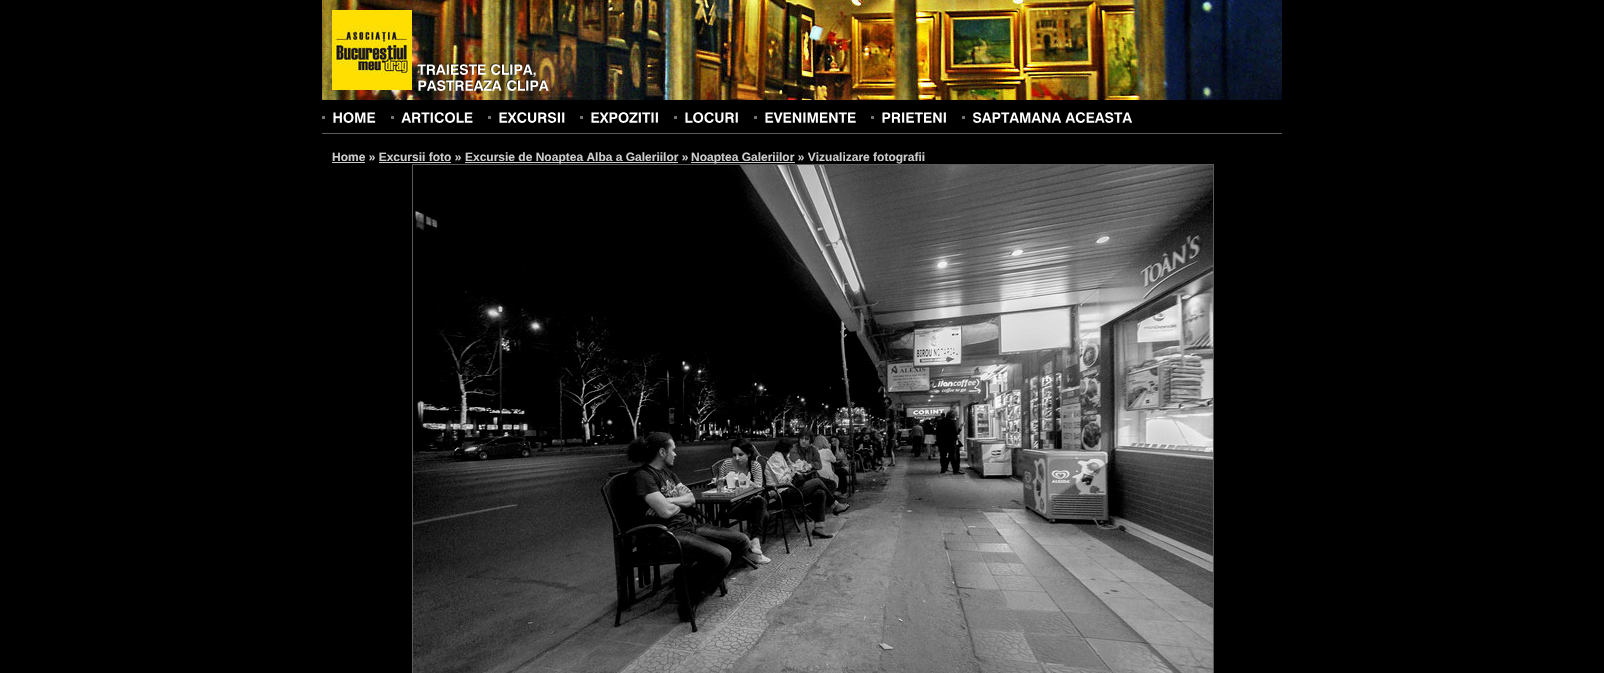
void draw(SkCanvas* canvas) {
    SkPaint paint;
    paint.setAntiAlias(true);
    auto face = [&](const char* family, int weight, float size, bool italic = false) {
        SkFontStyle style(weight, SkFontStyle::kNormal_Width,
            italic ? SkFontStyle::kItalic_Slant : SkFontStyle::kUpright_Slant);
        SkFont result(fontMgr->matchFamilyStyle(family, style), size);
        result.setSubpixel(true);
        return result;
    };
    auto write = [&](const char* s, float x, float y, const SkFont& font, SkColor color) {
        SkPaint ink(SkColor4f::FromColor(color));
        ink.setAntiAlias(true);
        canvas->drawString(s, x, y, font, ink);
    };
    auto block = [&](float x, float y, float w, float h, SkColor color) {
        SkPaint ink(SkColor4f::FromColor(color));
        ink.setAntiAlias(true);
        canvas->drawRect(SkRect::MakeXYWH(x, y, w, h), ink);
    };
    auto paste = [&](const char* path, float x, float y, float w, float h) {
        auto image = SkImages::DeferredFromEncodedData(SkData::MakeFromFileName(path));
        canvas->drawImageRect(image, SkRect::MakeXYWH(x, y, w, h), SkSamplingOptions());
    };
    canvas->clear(SK_ColorBLACK);
    paste("pic1.png", 322, 0, 960, 100);
    paste("pic2.png", 332, 10, 80, 80);
    paste("pic3.png", 416, 63, 70, 12);
    paste("pic4.png", 490, 63, 46, 14);
    paste("pic5.png", 417, 79, 85, 12);
    paste("pic6.png", 506, 79, 43, 12);
    block(322, 133, 960, 1, SkColorSetRGB(90, 90, 90));
    block(322, 116, 3, 3, SkColorSetRGB(115, 115, 115));
    paste("pic7.png", 333, 112, 43, 11);
    block(391, 116, 3, 3, SkColorSetRGB(115, 115, 115));
    paste("pic8.png", 401, 112, 72, 11);
    block(488, 116, 3, 3, SkColorSetRGB(115, 115, 115));
    paste("pic9.png", 499, 112, 66, 11);
    block(580, 116, 3, 3, SkColorSetRGB(115, 115, 115));
    paste("pic10.png", 591, 112, 67, 11);
    block(674, 116, 3, 3, SkColorSetRGB(115, 115, 115));
    paste("pic11.png", 685, 112, 53, 11);
    block(754, 116, 3, 3, SkColorSetRGB(115, 115, 115));
    paste("pic12.png", 765, 112, 91, 11);
    block(871, 116, 3, 3, SkColorSetRGB(115, 115, 115));
    paste("pic13.png", 882, 112, 64, 11);
    block(962, 116, 3, 3, SkColorSetRGB(115, 115, 115));
    paste("pic14.png", 973, 112, 89, 11);
    paste("pic15.png", 1065, 112, 67, 11);
    auto kFont1 = face("Liberation Sans", 700, 12);
    write("Home » Excursii foto »", 332, 161, kFont1, SkColorSetRGB(204, 204, 204));
    block(332, 162, 33, 1, SkColorSetRGB(204, 204, 204));
    block(465, 162, 213, 1, SkColorSetRGB(204, 204, 204));
    write("Excursie de Noaptea Alba a Galeriilor »", 465, 161, kFont1, SkColorSetRGB(204, 204, 204));
    block(691, 162, 104, 1, SkColorSetRGB(204, 204, 204));
    write("Noaptea Galeriilor » Vizualizare fotografii", 691, 161, kFont1, SkColorSetRGB(204, 204, 204));
    block(379, 162, 72, 1, SkColorSetRGB(204, 204, 204));
    paint.setStyle(SkPaint::kStroke_Style);
    paint.setStrokeWidth(1);
    paint.setColor(SkColorSetRGB(90, 90, 90));
    canvas->drawRect(SkRect::MakeXYWH(412.5f, 164.5f, 801, 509), paint);
    paste("pic16.png", 413, 165, 800, 508);
}
